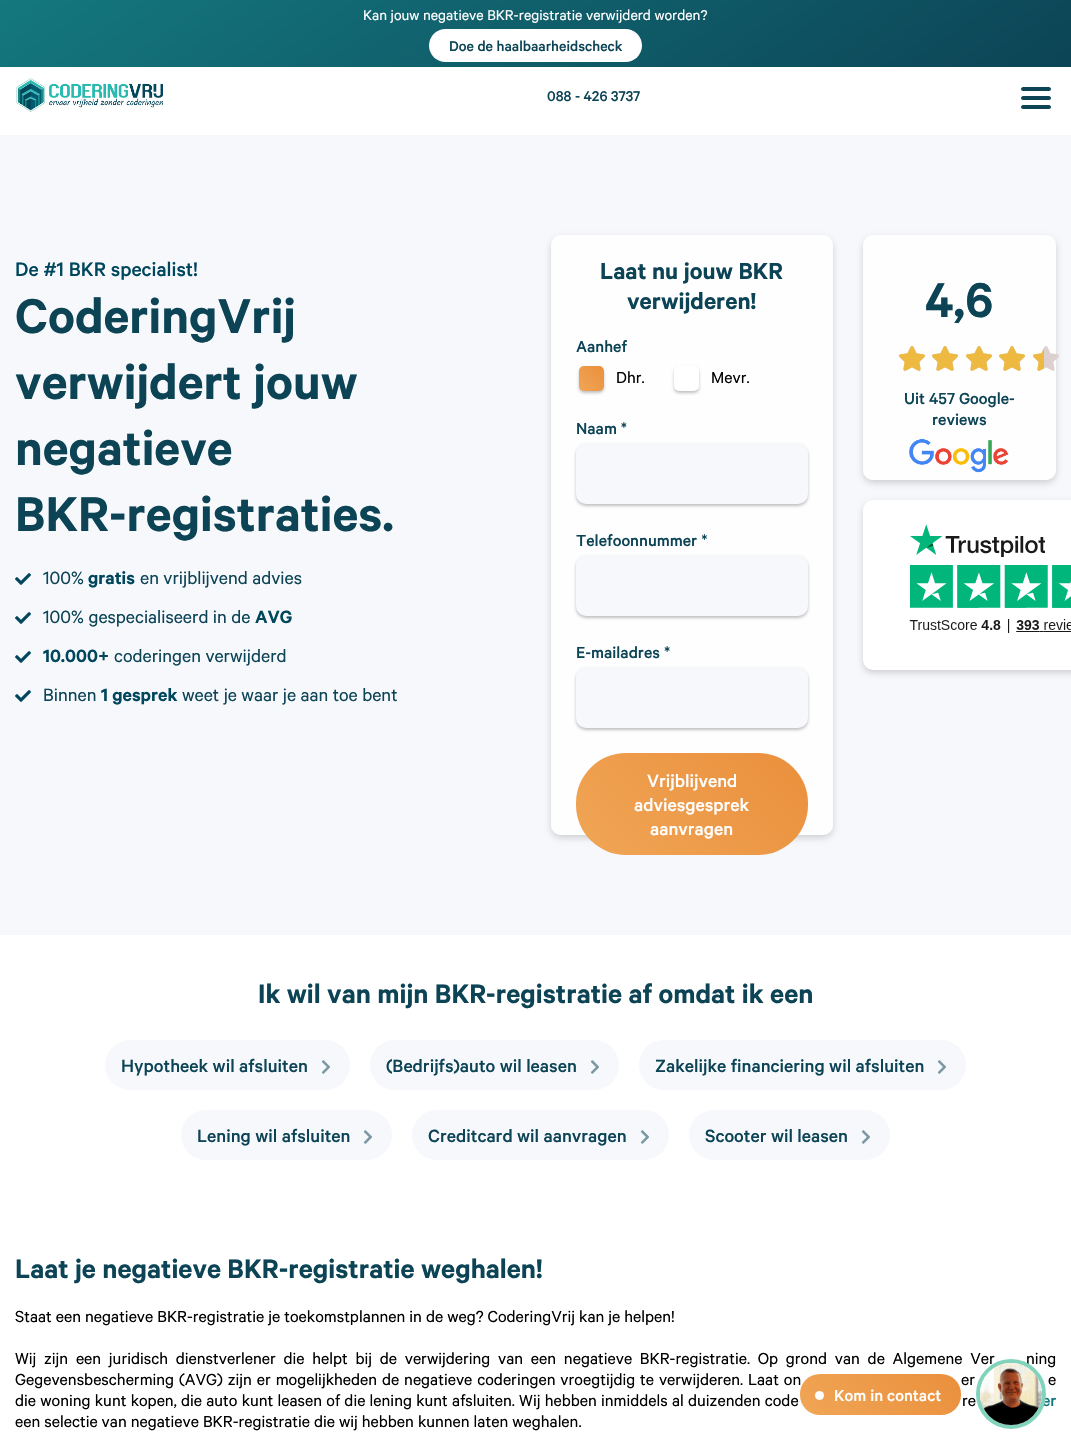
void draw(SkCanvas* canvas) {
    SkPaint paint;
    paint.setAntiAlias(true);
    auto face = [&](const char* family, int weight, float size, bool italic = false) {
        SkFontStyle style(weight, SkFontStyle::kNormal_Width,
            italic ? SkFontStyle::kItalic_Slant : SkFontStyle::kUpright_Slant);
        SkFont result(fontMgr->matchFamilyStyle(family, style), size);
        result.setSubpixel(true);
        return result;
    };
    auto write = [&](const char* s, float x, float y, const SkFont& font, SkColor color) {
        SkPaint ink(SkColor4f::FromColor(color));
        ink.setAntiAlias(true);
        canvas->drawString(s, x, y, font, ink);
    };
    auto writeSpaced = [&](const char* s, float x, float y, const SkFont& font, const SkPaint& ink, float letter, float word) {
        std::vector<SkGlyphID> glyphs(font.countText(s, strlen(s), SkTextEncoding::kUTF8));
        std::vector<float> xs(glyphs.size());
        font.textToGlyphs(s, strlen(s), SkTextEncoding::kUTF8, glyphs);
        font.getXPos(glyphs, xs, x);
        float extra = 0;
        for (size_t i = 0; i < glyphs.size(); i++) {
            xs[i] += extra;
            extra += letter + word * (glyphs[i] == font.unicharToGlyph(' '));
        }
        canvas->drawTextBlob(SkTextBlob::MakeFromPosHGlyphs(glyphs, xs, y, font), 0, 0, ink);
    };
    auto block = [&](float x, float y, float w, float h, SkColor color) {
        SkPaint ink(SkColor4f::FromColor(color));
        ink.setAntiAlias(true);
        canvas->drawRect(SkRect::MakeXYWH(x, y, w, h), ink);
    };
    auto card = [&](float x, float y, float w, float h, float radius, SkColor color) {
        SkPaint ink(SkColor4f::FromColor(color));
        ink.setAntiAlias(true);
        canvas->drawRoundRect(SkRect::MakeXYWH(x, y, w, h), radius, radius, ink);
    };
    auto paste = [&](const char* path, float x, float y, float w, float h) {
        auto image = SkImages::DeferredFromEncodedData(SkData::MakeFromFileName(path));
        canvas->drawImageRect(image, SkRect::MakeXYWH(x, y, w, h), SkSamplingOptions());
    };
    canvas->clear(SK_ColorWHITE);
    {
        const SkColor colors[] = {SkColorSetRGB(20, 120, 127), SkColorSetRGB(12, 68, 86)};
        const float stops[] = {0, 1};
        const SkPoint ends[] = {{344, -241}, {727, 308}};
        paint.setShader(SkGradientShader::MakeLinear(ends, colors, stops, 2, SkTileMode::kClamp));
        paint.setAlpha(255);
    }
    canvas->drawRect(SkRect::MakeXYWH(0, 0, 1071, 67), paint);
    auto kFont1 = face("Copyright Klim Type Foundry", 400, 16);
    write("Kan jouw negatieve BKR-registratie verwijderd worden?", 363, 20, kFont1, SK_ColorWHITE);
    card(429, 29, 213, 33, 16.5f, SK_ColorWHITE);
    auto kFont2 = face("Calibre", 500, 16);
    write("Doe de haalbaarheidscheck", 449, 51, kFont2, SkColorSetRGB(12, 68, 86));
    paste("pic1.png", 16, 78, 147, 34);
    write("088 - 426 3737", 547, 101, kFont2, SkColorSetRGB(12, 68, 86));
    paint.setShader(nullptr);
    paint.setColor(SkColorSetRGB(12, 68, 86));
    canvas->drawPath(SkPathBuilder().moveTo(1023, 87).lineTo(1036, 87).lineTo(1036, 91).lineTo(1023, 91).cubicTo(1022, 91, 1021, 90, 1021, 89).cubicTo(1021, 88, 1022, 87, 1023, 87).close().detach(), paint);
    canvas->drawPath(SkPathBuilder().moveTo(1036, 87).lineTo(1049, 87).cubicTo(1050, 87, 1051, 88, 1051, 89).cubicTo(1051, 90, 1050, 91, 1049, 91).lineTo(1036, 91).close().detach(), paint);
    canvas->drawPath(SkPathBuilder().moveTo(1023, 96).lineTo(1036, 96).lineTo(1036, 100).lineTo(1023, 100).cubicTo(1022, 100, 1021, 99, 1021, 98).cubicTo(1021, 97, 1022, 96, 1023, 96).close().detach(), paint);
    canvas->drawPath(SkPathBuilder().moveTo(1036, 96).lineTo(1049, 96).cubicTo(1050, 96, 1051, 97, 1051, 98).cubicTo(1051, 99, 1050, 100, 1049, 100).lineTo(1036, 100).close().detach(), paint);
    canvas->drawPath(SkPathBuilder().moveTo(1023, 105).lineTo(1036, 105).lineTo(1036, 109).lineTo(1023, 109).cubicTo(1022, 109, 1021, 108, 1021, 107).cubicTo(1021, 106, 1022, 105, 1023, 105).close().detach(), paint);
    canvas->drawPath(SkPathBuilder().moveTo(1036, 105).lineTo(1049, 105).cubicTo(1050, 105, 1051, 106, 1051, 107).cubicTo(1051, 108, 1050, 109, 1049, 109).lineTo(1036, 109).close().detach(), paint);
    block(0, 135, 1071, 800, SkColorSetRGB(246, 248, 252));
    auto kFont3 = face("Calibre", 500, 22);
    write("De #1 BKR specialist!", 15, 276, kFont3, SkColorSetRGB(0, 71, 93));
    auto kFont4 = face("Calibre", 600, 55);
    write("CoderingVrij", 15, 333, kFont4, SkColorSetRGB(12, 68, 86));
    write("verwijdert jouw", 15, 399, kFont4, SkColorSetRGB(12, 68, 86));
    write("negatieve", 15, 465, kFont4, SkColorSetRGB(12, 68, 86));
    write("BKR-registraties.", 15, 531, kFont4, SkColorSetRGB(12, 68, 86));
    paste("pic2.png", 15, 573, 16, 12);
    auto kFont5 = face("Copyright Klim Type Foundry", 400, 20);
    write("100%", 43, 584, kFont5, SkColorSetRGB(12, 68, 86));
    auto kFont6 = face("Calibre", 600, 20);
    write("gratis", 88, 584, kFont6, SkColorSetRGB(0, 71, 93));
    write("en vrijblijvend advies", 140, 584, kFont5, SkColorSetRGB(12, 68, 86));
    paste("pic2.png", 15, 612, 16, 12);
    write("100% gespecialiseerd in de", 43, 623, kFont5, SkColorSetRGB(12, 68, 86));
    write("AVG", 255, 623, kFont6, SkColorSetRGB(0, 71, 93));
    paste("pic2.png", 15, 651, 16, 12);
    write("10.000+", 43, 662, kFont6, SkColorSetRGB(0, 71, 93));
    write("coderingen verwijderd", 114, 662, kFont5, SkColorSetRGB(12, 68, 86));
    paste("pic2.png", 15, 690, 16, 12);
    write("Binnen", 43, 701, kFont5, SkColorSetRGB(12, 68, 86));
    write("1 gesprek", 101, 701, kFont6, SkColorSetRGB(0, 71, 93));
    write("weet je waar je aan toe bent", 182, 701, kFont5, SkColorSetRGB(12, 68, 86));
    canvas->save();
    canvas->clipPath(SkPathBuilder(SkPathFillType::kEvenOdd).moveTo(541, 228).lineTo(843, 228).lineTo(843, 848).lineTo(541, 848).close().moveTo(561, 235).lineTo(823, 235).cubicTo(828.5f, 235, 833, 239.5f, 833, 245).lineTo(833, 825).cubicTo(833, 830.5f, 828.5f, 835, 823, 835).lineTo(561, 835).cubicTo(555.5f, 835, 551, 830.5f, 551, 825).lineTo(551, 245).cubicTo(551, 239.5f, 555.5f, 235, 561, 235).close().detach(), true);
    paint.setColor(SkColorSetARGB(41, 0, 0, 0));
    paint.setMaskFilter(SkMaskFilter::MakeBlur(kNormal_SkBlurStyle, 3));
    canvas->drawRoundRect(SkRect::MakeXYWH(551, 238, 282, 600), 10, 10, paint);
    paint.setMaskFilter(nullptr);
    canvas->restore();
    card(551, 235, 282, 600, 10, SkColorSetARGB(204, 255, 255, 255));
    auto kFont7 = face("Calibre", 600, 26);
    write("Laat nu jouw BKR", 600, 279, kFont7, SkColorSetRGB(12, 68, 86));
    write("verwijderen!", 627, 309, kFont7, SkColorSetRGB(12, 68, 86));
    auto kFont8 = face("Calibre", 500, 18);
    write("Aanhef", 576, 352, kFont8, SkColorSetRGB(12, 68, 86));
    paint.setColor(SkColorSetARGB(61, 0, 0, 0));
    paint.setMaskFilter(SkMaskFilter::MakeBlur(kNormal_SkBlurStyle, 1.5f));
    canvas->drawRoundRect(SkRect::MakeXYWH(579, 368, 25, 25), 5, 5, paint);
    paint.setMaskFilter(nullptr);
    {
        const SkColor colors[] = {SkColorSetRGB(240, 166, 86), SkColorSetRGB(234, 143, 60)};
        const float stops[] = {0, 1};
        const SkPoint ends[] = {{579, 391}, {604, 366}};
        paint.setShader(SkGradientShader::MakeLinear(ends, colors, stops, 2, SkTileMode::kClamp));
        paint.setAlpha(255);
    }
    canvas->drawRoundRect(SkRect::MakeXYWH(579, 366, 25, 25), 5, 5, paint);
    auto kFont9 = face("Copyright Klim Type Foundry", 400, 18);
    write("Dhr.", 616, 383, kFont9, SK_ColorBLACK);
    paint.setShader(nullptr);
    paint.setColor(SkColorSetARGB(61, 0, 0, 0));
    paint.setMaskFilter(SkMaskFilter::MakeBlur(kNormal_SkBlurStyle, 1.5f));
    canvas->drawRoundRect(SkRect::MakeXYWH(674, 368, 25, 25), 5, 5, paint);
    paint.setMaskFilter(nullptr);
    card(674, 366, 25, 25, 5, SK_ColorWHITE);
    write("Mevr.", 711, 383, kFont9, SK_ColorBLACK);
    write("Naam *", 576, 434, kFont8, SkColorSetRGB(12, 68, 86));
    paint.setMaskFilter(SkMaskFilter::MakeBlur(kNormal_SkBlurStyle, 1.5f));
    canvas->drawRoundRect(SkRect::MakeXYWH(576, 445, 232, 61), 10, 10, paint);
    paint.setMaskFilter(nullptr);
    card(576, 443, 232, 61, 10, SkColorSetRGB(246, 248, 252));
    write("Telefoonnummer *", 576, 546, kFont8, SkColorSetRGB(12, 68, 86));
    paint.setMaskFilter(SkMaskFilter::MakeBlur(kNormal_SkBlurStyle, 1.5f));
    canvas->drawRoundRect(SkRect::MakeXYWH(576, 557, 232, 61), 10, 10, paint);
    paint.setMaskFilter(nullptr);
    card(576, 555, 232, 61, 10, SkColorSetRGB(246, 248, 252));
    write("E-mailadres *", 576, 658, kFont8, SkColorSetRGB(12, 68, 86));
    paint.setMaskFilter(SkMaskFilter::MakeBlur(kNormal_SkBlurStyle, 1.5f));
    canvas->drawRoundRect(SkRect::MakeXYWH(576, 669, 232, 61), 10, 10, paint);
    paint.setMaskFilter(nullptr);
    card(576, 667, 232, 61, 10, SkColorSetRGB(246, 248, 252));
    {
        const SkColor colors[] = {SkColorSetRGB(240, 166, 86), SkColorSetRGB(234, 143, 60)};
        const float stops[] = {0, 1};
        const SkPoint ends[] = {{609, 888}, {776, 721}};
        paint.setShader(SkGradientShader::MakeLinear(ends, colors, stops, 2, SkTileMode::kClamp));
        paint.setAlpha(255);
    }
    canvas->drawRoundRect(SkRect::MakeXYWH(576, 753, 232, 102), 50, 50, paint);
    auto kFont10 = face("Calibre", 500, 20);
    write("Vrijblijvend", 647, 787, kFont10, SK_ColorWHITE);
    write("adviesgesprek", 634, 811, kFont10, SK_ColorWHITE);
    write("aanvragen", 650, 835, kFont10, SK_ColorWHITE);
    canvas->save();
    canvas->clipPath(SkPathBuilder(SkPathFillType::kEvenOdd).moveTo(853, 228).lineTo(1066, 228).lineTo(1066, 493).lineTo(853, 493).close().moveTo(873, 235).lineTo(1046, 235).cubicTo(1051.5f, 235, 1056, 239.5f, 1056, 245).lineTo(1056, 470).cubicTo(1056, 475.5f, 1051.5f, 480, 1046, 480).lineTo(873, 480).cubicTo(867.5f, 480, 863, 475.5f, 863, 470).lineTo(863, 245).cubicTo(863, 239.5f, 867.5f, 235, 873, 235).close().detach(), true);
    paint.setShader(nullptr);
    paint.setColor(SkColorSetARGB(41, 0, 0, 0));
    paint.setMaskFilter(SkMaskFilter::MakeBlur(kNormal_SkBlurStyle, 3));
    canvas->drawRoundRect(SkRect::MakeXYWH(863, 238, 193, 245), 10, 10, paint);
    paint.setMaskFilter(nullptr);
    canvas->restore();
    card(863, 235, 193, 245, 10, SkColorSetARGB(204, 255, 255, 255));
    write("4,6", 925, 317, kFont4, SkColorSetRGB(12, 68, 86));
    paste("pic3.png", 899, 346, 26, 25);
    paste("pic3.png", 932, 346, 26, 25);
    paste("pic3.png", 966, 346, 26, 25);
    paste("pic3.png", 999, 346, 26, 25);
    paste("pic4.png", 1033, 346, 26, 25);
    paste("pic5.png", 899, 346, 26, 25);
    paste("pic5.png", 932, 346, 26, 25);
    paste("pic5.png", 966, 346, 26, 25);
    paste("pic5.png", 999, 346, 26, 25);
    paste("pic6.png", 1033, 348, 11, 23);
    write("Uit 457 Google-", 904, 404, kFont8, SkColorSetRGB(12, 68, 86));
    write("reviews", 932, 425, kFont8, SkColorSetRGB(12, 68, 86));
    paste("pic7.png", 909, 438, 100, 35);
    paint.setMaskFilter(SkMaskFilter::MakeBlur(kNormal_SkBlurStyle, 3));
    canvas->drawRoundRect(SkRect::MakeXYWH(863, 503, 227, 170), 10, 10, paint);
    paint.setMaskFilter(nullptr);
    card(863, 500, 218, 170, 10, SK_ColorWHITE);
    paste("pic8.png", 909, 524, 162, 109);
    auto kFont11 = face("Calibre", 600, 30);
    write("Ik wil van mijn BKR-registratie af omdat ik een", 258, 1003, kFont11, SkColorSetRGB(12, 68, 86));
    card(105, 1040, 245, 50, 25, SkColorSetRGB(246, 248, 252));
    write("Hypotheek wil afsluiten", 121, 1072, kFont10, SkColorSetRGB(12, 68, 86));
    paste("pic9.png", 321, 1060, 9, 14);
    card(370, 1040, 249, 50, 25, SkColorSetRGB(246, 248, 252));
    write("(Bedrijfs)auto wil leasen", 386, 1072, kFont10, SkColorSetRGB(12, 68, 86));
    paste("pic9.png", 590, 1060, 9, 14);
    card(639, 1040, 327, 50, 25, SkColorSetRGB(246, 248, 252));
    write("Zakelijke financiering wil afsluiten", 655, 1072, kFont10, SkColorSetRGB(12, 68, 86));
    paste("pic9.png", 937, 1060, 9, 14);
    card(181, 1110, 211, 50, 25, SkColorSetRGB(246, 248, 252));
    write("Lening wil afsluiten", 197, 1142, kFont10, SkColorSetRGB(12, 68, 86));
    paste("pic9.png", 363, 1130, 9, 14);
    card(412, 1110, 257, 50, 25, SkColorSetRGB(246, 248, 252));
    write("Creditcard wil aanvragen", 428, 1142, kFont10, SkColorSetRGB(12, 68, 86));
    paste("pic9.png", 640, 1130, 9, 14);
    card(689, 1110, 201, 50, 25, SkColorSetRGB(246, 248, 252));
    write("Scooter wil leasen", 705, 1142, kFont10, SkColorSetRGB(12, 68, 86));
    paste("pic9.png", 861, 1130, 9, 14);
    write("Laat je negatieve BKR-registratie weghalen!", 15, 1278, kFont11, SkColorSetRGB(12, 68, 86));
    write("Staat een negatieve BKR-registratie je toekomstplannen in de weg? CoderingVrij kan je helpen!", 15, 1322, kFont9, SK_ColorBLACK);
    paint.setColor(SK_ColorBLACK);
    writeSpaced("Wij zijn een juridisch dienstverlener die helpt bij de verwijdering van een negatieve BKR-registratie. Op grond van de Algemene Ver", 15, 1364, kFont9, paint, 0, 3.75f);
    writeSpaced("ning", 1026, 1364, kFont9, paint, 0, 3.75f);
    writeSpaced("Gegevensbescherming (AVG) zijn er mogelijkheden de negatieve coderingen vroegtijdig te verwijderen. Laat on", 15, 1385, kFont9, paint, 0, 0.9f);
    writeSpaced("er", 961, 1385, kFont9, paint, 0, 0.9f);
    writeSpaced("e", 1048, 1385, kFont9, paint, 0, 0.9f);
    writeSpaced("die woning kunt kopen, die auto kunt leasen of die lening kunt afsluiten. Wij hebben inmiddels al duizenden code", 15, 1406, kFont9, paint, 0, 0.25f);
    writeSpaced("re", 962, 1406, kFont9, paint, 0, 0.25f);
    write("er", 1042, 1406, kFont8, SkColorSetRGB(20, 120, 127));
    write("een selectie van negatieve BKR-registratie die wij hebben kunnen laten weghalen.", 15, 1427, kFont9, SK_ColorBLACK);
    {
        const SkColor colors[] = {SkColorSetRGB(240, 166, 86), SkColorSetRGB(234, 143, 60)};
        const float stops[] = {0, 1};
        const SkPoint ends[] = {{830, 1445}, {931, 1344}};
        paint.setShader(SkGradientShader::MakeLinear(ends, colors, stops, 2, SkTileMode::kClamp));
        paint.setAlpha(255);
    }
    canvas->drawRoundRect(SkRect::MakeXYWH(800, 1374, 161, 41), 20, 20, paint);
    paint.setShader(nullptr);
    paint.setColor(SK_ColorWHITE);
    canvas->drawCircle(819.5f, 1395.5f, 4.5f, paint);
    write("Kom in contact", 834, 1401, kFont8, SK_ColorWHITE);
    paint.setStyle(SkPaint::kStroke_Style);
    paint.setStrokeWidth(4);
    paint.setColor(SkColorSetRGB(130, 211, 188));
    canvas->drawCircle(1011, 1394, 33, paint);
    paste("pic10.png", 980, 1363, 62, 62);
}
